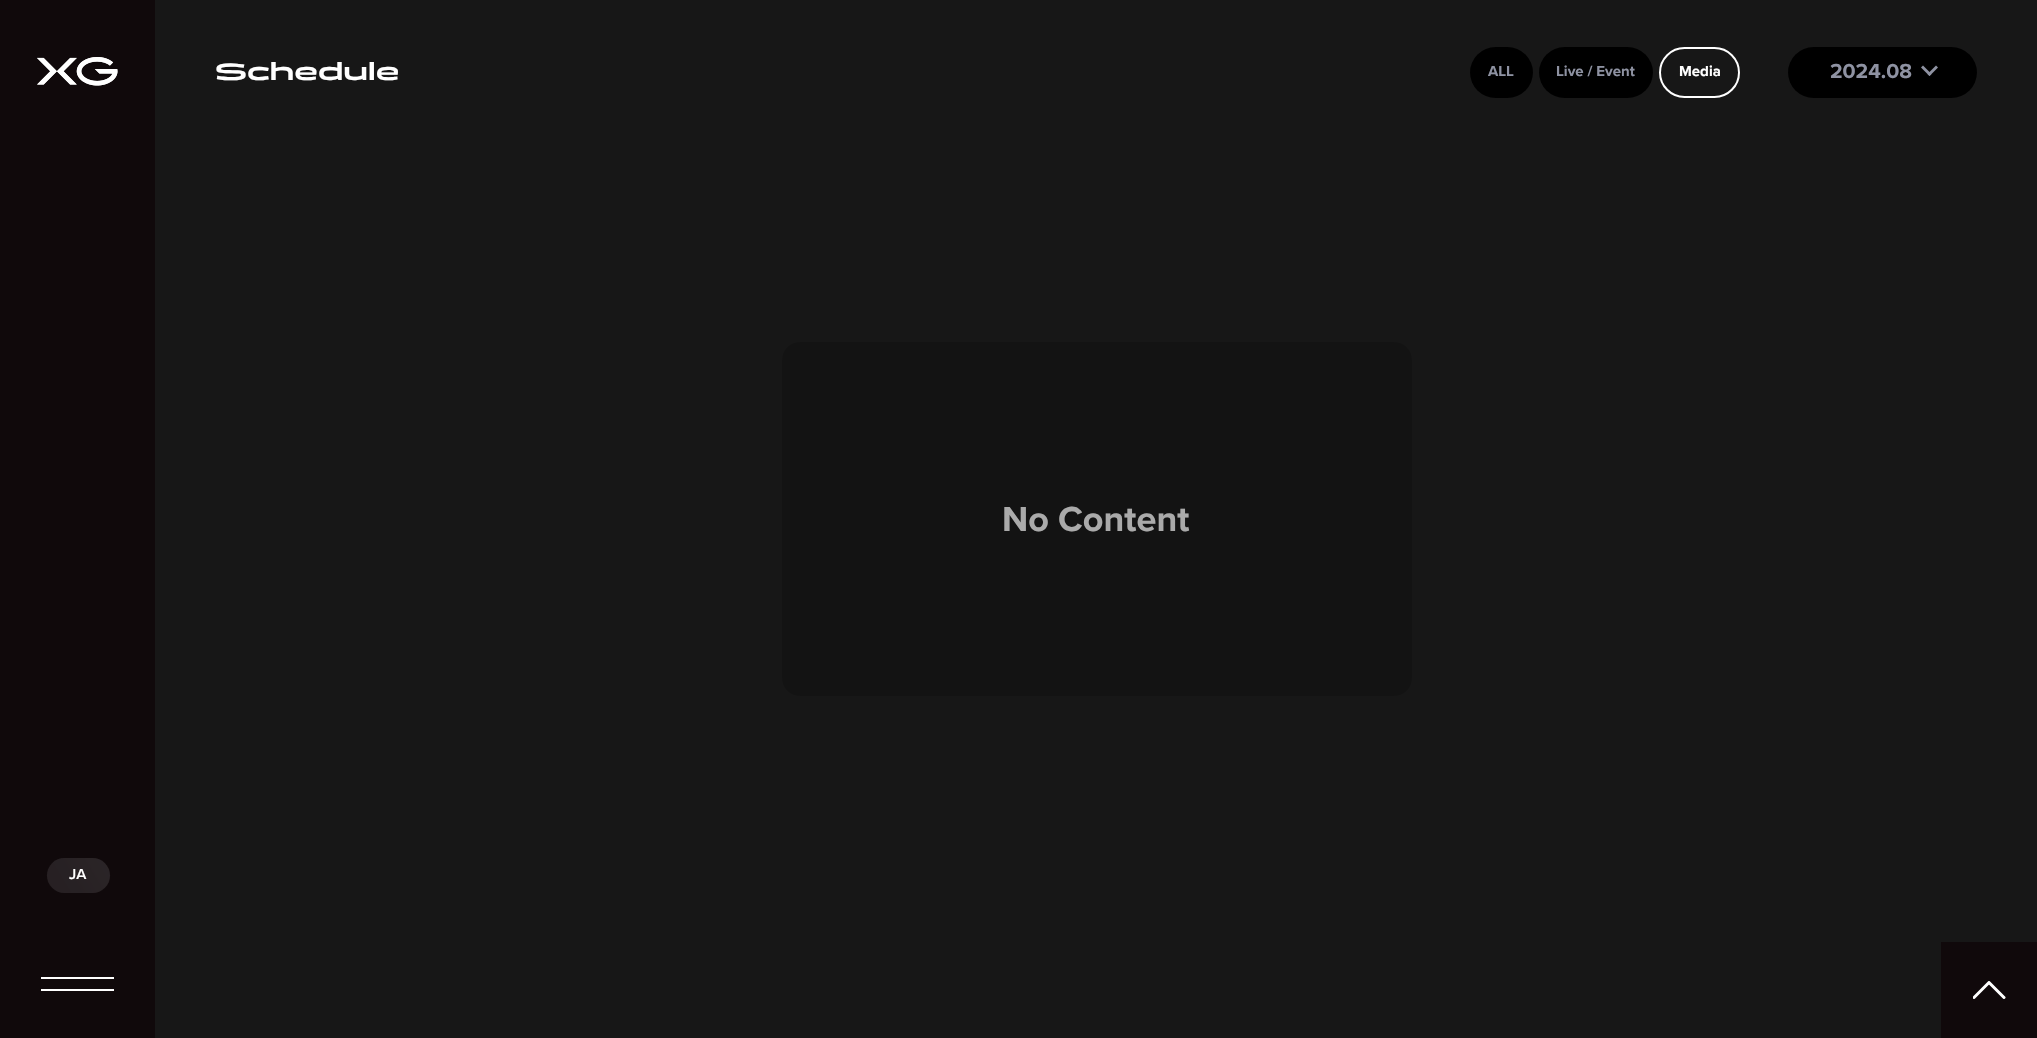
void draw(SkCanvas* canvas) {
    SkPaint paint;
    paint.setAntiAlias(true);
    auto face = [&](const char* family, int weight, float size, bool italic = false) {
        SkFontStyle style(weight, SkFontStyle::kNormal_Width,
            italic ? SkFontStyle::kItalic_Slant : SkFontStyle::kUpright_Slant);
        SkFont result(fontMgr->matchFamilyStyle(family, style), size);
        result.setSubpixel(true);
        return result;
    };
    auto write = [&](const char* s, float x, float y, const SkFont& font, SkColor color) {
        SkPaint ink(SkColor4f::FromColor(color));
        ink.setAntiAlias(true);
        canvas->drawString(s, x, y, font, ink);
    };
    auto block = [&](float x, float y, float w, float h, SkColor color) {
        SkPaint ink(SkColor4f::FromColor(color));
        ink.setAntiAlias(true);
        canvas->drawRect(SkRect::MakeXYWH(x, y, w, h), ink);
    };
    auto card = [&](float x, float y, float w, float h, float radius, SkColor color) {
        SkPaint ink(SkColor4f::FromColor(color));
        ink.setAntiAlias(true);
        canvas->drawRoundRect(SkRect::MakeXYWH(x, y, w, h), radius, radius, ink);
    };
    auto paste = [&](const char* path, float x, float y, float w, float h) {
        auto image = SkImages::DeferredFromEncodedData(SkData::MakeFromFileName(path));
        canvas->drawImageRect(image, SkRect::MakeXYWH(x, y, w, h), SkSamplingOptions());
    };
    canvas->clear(SkColorSetRGB(23, 23, 23));
    auto kFont1 = face("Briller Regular", 700, 24);
    write("Schedule", 215, 80, kFont1, SK_ColorWHITE);
    card(1470, 47, 63, 51, 25.5f, SK_ColorBLACK);
    auto kFont2 = face("Proxima Nova", 700, 15);
    write("ALL", 1488, 76, kFont2, SkColorSetRGB(142, 146, 162));
    card(1539, 47, 114, 51, 25.5f, SK_ColorBLACK);
    write("Live / Event", 1556, 76, kFont2, SkColorSetRGB(142, 146, 162));
    paint.setStyle(SkPaint::kStroke_Style);
    paint.setStrokeWidth(2);
    paint.setColor(SK_ColorWHITE);
    canvas->drawRoundRect(SkRect::MakeXYWH(1660, 48, 79, 49), 24.5f, 24.5f, paint);
    write("Media", 1679, 76, kFont2, SK_ColorWHITE);
    card(1788, 47, 189, 51, 25.5f, SK_ColorBLACK);
    auto kFont3 = face("Proxima Nova", 700, 21);
    write("2024.08", 1830, 78, kFont3, SkColorSetRGB(142, 146, 162));
    paint.setStyle(SkPaint::kFill_Style);
    paint.setColor(SkColorSetRGB(142, 146, 162));
    canvas->drawPath(SkPathBuilder().moveTo(1936, 65.5f).lineTo(1938, 67.5f).lineTo(1929.5f, 76).lineTo(1927.5f, 74).close().detach(), paint);
    canvas->drawPath(SkPathBuilder().moveTo(1923, 65.5f).lineTo(1931.5f, 74).lineTo(1929.5f, 76).lineTo(1921, 67.5f).close().detach(), paint);
    card(782, 342, 630, 354, 18, SkColorSetRGB(19, 19, 19));
    auto kFont4 = face("Proxima Nova", 700, 36);
    write("No Content", 1002, 531, kFont4, SkColorSetRGB(170, 170, 170));
    block(1941, 942, 96, 96, SkColorSetRGB(16, 9, 11));
    canvas->save();
    canvas->clipRect(SkRect::MakeXYWH(1973, 981, 33, 18));
    paint.setStyle(SkPaint::kStroke_Style);
    paint.setStrokeWidth(3);
    paint.setStrokeCap(SkPaint::kRound_Cap);
    paint.setStrokeJoin(SkPaint::kRound_Join);
    paint.setColor(SK_ColorWHITE);
    canvas->drawPath(SkPathBuilder().moveTo(1974, 997.5f).lineTo(1989, 982.5f).lineTo(2004, 997.5f).detach(), paint);
    canvas->restore();
    block(0, 0, 155, 1038, SkColorSetRGB(16, 9, 11));
    paste("pic1.png", 37, 57, 81, 29);
    paste("pic2.png", 37, 57, 81, 29);
    card(47, 858, 63, 35, 17.5f, SkColorSetRGB(33, 26, 28));
    paint.setStyle(SkPaint::kFill_Style);
    {
        const SkColor colors[] = {SkColorSetARGB(18, 178, 172, 181), SkColorSetARGB(13, 118, 120, 131)};
        const float stops[] = {0, 1};
        const SkPoint ends[] = {{109, 857}, {47, 894}};
        paint.setShader(SkGradientShader::MakeLinear(ends, colors, stops, 2, SkTileMode::kClamp));
        paint.setAlpha(255);
    }
    canvas->drawRoundRect(SkRect::MakeXYWH(47, 858, 63, 35), 17.5f, 17.5f, paint);
    auto kFont5 = face("Proxima Nova", 600, 15);
    write("JA", 69, 879, kFont5, SK_ColorWHITE);
    block(41, 977, 73, 2, SK_ColorWHITE);
    block(41, 989, 73, 2, SK_ColorWHITE);
}
